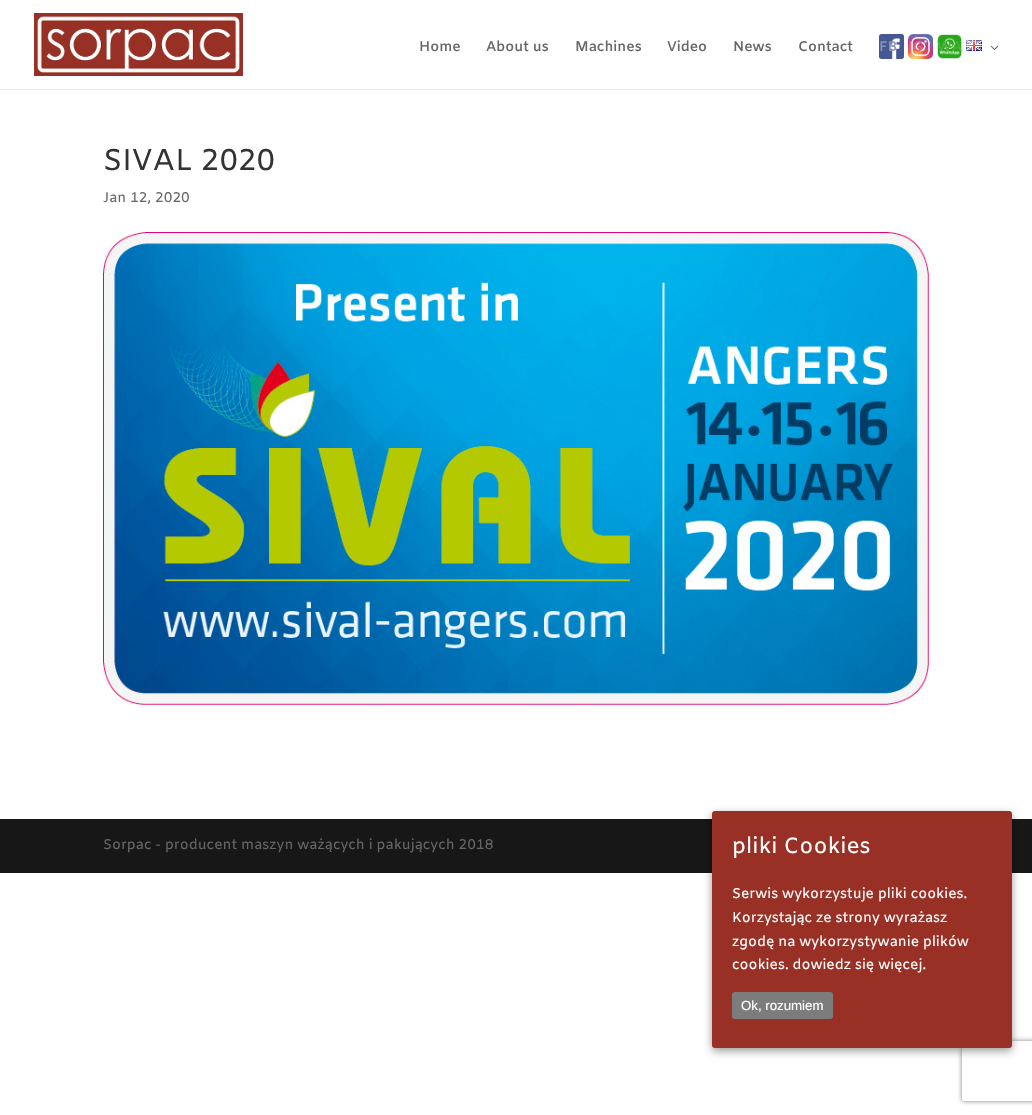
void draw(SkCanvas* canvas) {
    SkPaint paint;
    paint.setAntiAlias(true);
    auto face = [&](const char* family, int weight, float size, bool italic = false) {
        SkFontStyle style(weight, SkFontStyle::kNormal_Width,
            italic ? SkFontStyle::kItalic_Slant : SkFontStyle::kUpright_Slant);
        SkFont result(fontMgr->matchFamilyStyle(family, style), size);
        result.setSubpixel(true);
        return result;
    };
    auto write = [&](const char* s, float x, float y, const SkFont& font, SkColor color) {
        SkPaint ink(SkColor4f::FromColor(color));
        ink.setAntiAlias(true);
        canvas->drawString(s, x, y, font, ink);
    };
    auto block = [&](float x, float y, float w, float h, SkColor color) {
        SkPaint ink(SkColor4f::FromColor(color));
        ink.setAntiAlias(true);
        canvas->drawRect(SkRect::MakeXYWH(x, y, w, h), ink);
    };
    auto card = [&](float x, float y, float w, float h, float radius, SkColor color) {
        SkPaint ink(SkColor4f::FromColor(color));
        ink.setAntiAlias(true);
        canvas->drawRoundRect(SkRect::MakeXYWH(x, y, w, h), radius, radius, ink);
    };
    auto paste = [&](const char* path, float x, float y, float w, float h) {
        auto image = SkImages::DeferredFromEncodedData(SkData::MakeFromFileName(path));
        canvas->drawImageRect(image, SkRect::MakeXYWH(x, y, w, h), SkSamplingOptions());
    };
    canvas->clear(SK_ColorWHITE);
    block(0, 89, 1032, 1, SkColorSetRGB(230, 230, 230));
    paste("pic1.png", 34, 13, 209, 63);
    auto kFont1 = face("Amiko", 600, 14);
    write("Home", 419, 51, kFont1, SkColorSetRGB(102, 102, 102));
    write("About us", 486, 51, kFont1, SkColorSetRGB(102, 102, 102));
    write("Machines", 575, 51, kFont1, SkColorSetRGB(102, 102, 102));
    write("Video", 667, 51, kFont1, SkColorSetRGB(102, 102, 102));
    write("News", 733, 51, kFont1, SkColorSetRGB(102, 102, 102));
    write("Contact", 798, 51, kFont1, SkColorSetRGB(102, 102, 102));
    paste("pic2.png", 879, 34, 25, 25);
    write("FB", 879, 51, kFont1, SkColorSetRGB(135, 147, 185));
    paste("pic3.png", 908, 34, 25, 25);
    write("IG", 908, 51, kFont1, SkColorSetRGB(223, 103, 126));
    paste("pic4.png", 937, 34, 25, 25);
    write("WA", 937, 51, kFont1, SkColorSetRGB(70, 179, 57));
    paste("pic5.png", 966, 40, 16, 11);
    paste("pic6.png", 990, 45, 9, 5);
    auto kFont2 = face("Amiko", 400, 30);
    write("SIVAL 2020", 103, 170, kFont2, SkColorSetRGB(51, 51, 51));
    auto kFont3 = face("Amiko", 400, 14);
    write("Jan 12, 2020", 103, 202, kFont3, SkColorSetRGB(102, 102, 102));
    paste("pic7.png", 103, 232, 826, 473);
    block(0, 819, 1032, 54, SkColorSetRGB(23, 23, 23));
    write("Sorpac - producent maszyn ważących i pakujących 2018", 103, 849, kFont3, SkColorSetRGB(102, 102, 102));
    paint.setColor(SkColorSetARGB(102, 0, 0, 0));
    paint.setMaskFilter(SkMaskFilter::MakeBlur(kNormal_SkBlurStyle, 4.5f));
    canvas->drawRoundRect(SkRect::MakeXYWH(712, 814, 300, 237), 3, 3, paint);
    paint.setMaskFilter(nullptr);
    canvas->save();
    canvas->clipPath(SkPathBuilder(SkPathFillType::kEvenOdd).moveTo(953, 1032).lineTo(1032, 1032).lineTo(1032, 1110).lineTo(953, 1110).close().moveTo(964, 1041).lineTo(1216, 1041).cubicTo(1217, 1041, 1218, 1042, 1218, 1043).lineTo(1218, 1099).cubicTo(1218, 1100, 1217, 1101, 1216, 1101).lineTo(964, 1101).cubicTo(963, 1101, 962, 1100, 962, 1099).lineTo(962, 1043).cubicTo(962, 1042, 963, 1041, 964, 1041).close().detach(), true);
    paint.setColor(SkColorSetRGB(128, 128, 128));
    paint.setMaskFilter(SkMaskFilter::MakeBlur(kNormal_SkBlurStyle, 2.5f));
    canvas->drawRoundRect(SkRect::MakeXYWH(962, 1041, 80, 60), 2, 2, paint);
    paint.setMaskFilter(nullptr);
    canvas->restore();
    card(712, 811, 300, 237, 3, SkColorSetRGB(152, 48, 37));
    auto kFont4 = face("Amiko", 400, 22);
    write("pliki Cookies", 732, 853, kFont4, SK_ColorWHITE);
    write("Serwis wykorzystuje pliki cookies.", 732, 898, kFont3, SK_ColorWHITE);
    write("Korzystając ze strony wyrażasz", 732, 922, kFont3, SK_ColorWHITE);
    write("zgodę na wykorzystywanie plików", 732, 946, kFont3, SK_ColorWHITE);
    write("cookies. dowiedz się więcej.", 732, 969, kFont3, SK_ColorWHITE);
    card(732, 992, 101, 27, 3, SkColorSetRGB(124, 124, 124));
    auto kFont5 = face("Liberation Sans", 400, 13.25f);
    write("Ok, rozumiem", 741, 1010, kFont5, SK_ColorWHITE);
}
